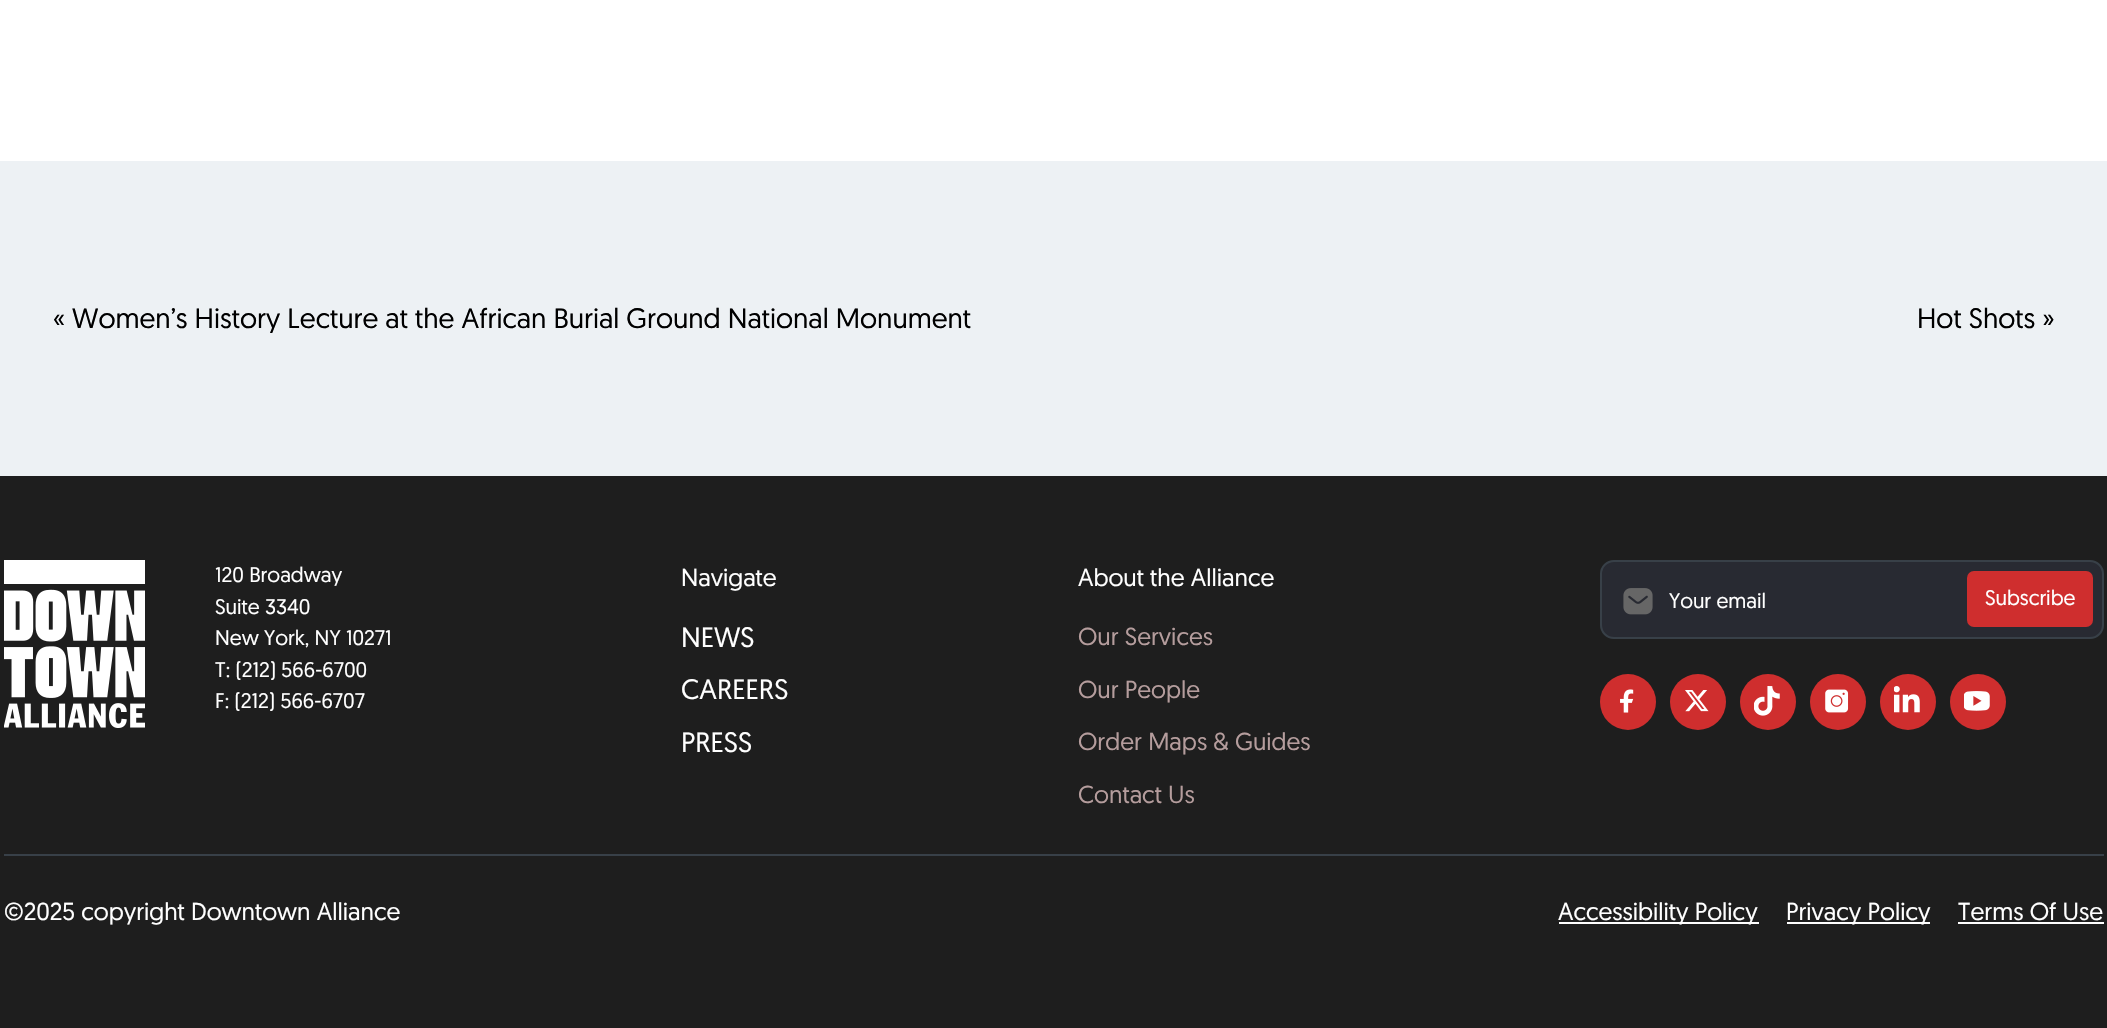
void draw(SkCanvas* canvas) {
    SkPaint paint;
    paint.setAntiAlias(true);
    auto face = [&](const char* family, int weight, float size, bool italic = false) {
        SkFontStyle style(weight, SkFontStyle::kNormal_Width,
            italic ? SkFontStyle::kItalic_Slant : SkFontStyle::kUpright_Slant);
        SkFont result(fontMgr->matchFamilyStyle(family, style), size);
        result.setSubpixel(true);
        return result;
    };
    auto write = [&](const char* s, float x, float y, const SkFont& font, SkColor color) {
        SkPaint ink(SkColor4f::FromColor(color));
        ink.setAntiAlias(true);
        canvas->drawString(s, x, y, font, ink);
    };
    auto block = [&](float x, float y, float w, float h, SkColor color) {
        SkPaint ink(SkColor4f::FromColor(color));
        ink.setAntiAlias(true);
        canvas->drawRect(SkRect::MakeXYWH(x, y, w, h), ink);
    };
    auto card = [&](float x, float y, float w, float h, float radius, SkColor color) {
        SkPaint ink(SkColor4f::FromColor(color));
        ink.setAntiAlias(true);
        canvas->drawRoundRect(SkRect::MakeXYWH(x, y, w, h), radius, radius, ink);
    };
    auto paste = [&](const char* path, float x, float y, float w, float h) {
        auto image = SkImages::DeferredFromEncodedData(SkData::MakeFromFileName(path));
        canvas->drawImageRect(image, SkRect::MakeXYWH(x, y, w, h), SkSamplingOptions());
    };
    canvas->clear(SK_ColorWHITE);
    block(0, 161, 2107, 315, SkColorSetRGB(237, 241, 244));
    auto kFont1 = face("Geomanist", 400, 28);
    write("«", 53, 328, kFont1, SK_ColorBLACK);
    write("Women’s History Lecture at the African Burial Ground National Monument", 72, 328, kFont1, SK_ColorBLACK);
    write("Hot Shots »", 1917, 328, kFont1, SK_ColorBLACK);
    block(0, 476, 2107, 552, SkColorSetRGB(30, 30, 30));
    block(4, 854, 2100, 2, SkColorSetRGB(56, 64, 72));
    paste("pic1.png", 4, 560, 141, 168);
    auto kFont2 = face("Geomanist", 400, 21);
    write("120 Broadway", 215, 582, kFont2, SK_ColorWHITE);
    write("Suite 3340", 215, 614, kFont2, SK_ColorWHITE);
    write("New York, NY 10271", 215, 645, kFont2, SK_ColorWHITE);
    write("T: (212) 566-6700", 215, 677, kFont2, SK_ColorWHITE);
    write("F: (212) 566-6707", 215, 708, kFont2, SK_ColorWHITE);
    auto kFont3 = face("Geomanist", 400, 24.5f);
    write("Navigate", 681, 586, kFont3, SK_ColorWHITE);
    write("NEWS", 681, 647, kFont1, SK_ColorWHITE);
    write("CAREERS", 681, 699, kFont1, SK_ColorWHITE);
    write("PRESS", 681, 752, kFont1, SK_ColorWHITE);
    write("About the Alliance", 1078, 586, kFont3, SK_ColorWHITE);
    write("Our Services", 1078, 645, kFont3, SkColorSetRGB(181, 157, 157));
    write("Our People", 1078, 698, kFont3, SkColorSetRGB(181, 157, 157));
    write("Order Maps & Guides", 1078, 750, kFont3, SkColorSetRGB(181, 157, 157));
    write("Contact Us", 1078, 803, kFont3, SkColorSetRGB(181, 157, 157));
    paint.setColor(SkColorSetRGB(40, 42, 50));
    canvas->drawRoundRect(SkRect::MakeXYWH(1601, 561, 502, 77), 13, 13, paint);
    paint.setStyle(SkPaint::kStroke_Style);
    paint.setStrokeWidth(2);
    paint.setColor(SkColorSetRGB(56, 64, 72));
    canvas->drawRoundRect(SkRect::MakeXYWH(1601, 561, 502, 77), 13, 13, paint);
    paste("pic2.png", 1623, 588, 30, 27);
    write("Your email", 1669, 608, kFont2, SK_ColorWHITE);
    card(1967, 571, 126, 56, 7, SkColorSetRGB(207, 46, 46));
    write("Subscribe", 1985, 605, kFont2, SK_ColorWHITE);
    paint.setStyle(SkPaint::kFill_Style);
    paint.setColor(SkColorSetRGB(207, 46, 46));
    canvas->drawCircle(1628, 702, 28, paint);
    paste("pic3.png", 1620, 689, 14, 24);
    canvas->drawCircle(1698, 702, 28, paint);
    paste("pic4.png", 1685, 690, 24, 22);
    canvas->drawCircle(1768, 702, 28, paint);
    paste("pic5.png", 1754, 686, 26, 30);
    canvas->drawCircle(1838, 702, 28, paint);
    paste("pic6.png", 1825, 689, 24, 24);
    canvas->drawCircle(1908, 702, 28, paint);
    paste("pic7.png", 1894, 686, 26, 27);
    canvas->drawCircle(1978, 702, 28, paint);
    paste("pic8.png", 1964, 691, 26, 20);
    write("©2025 copyright Downtown Alliance", 4, 920, kFont3, SK_ColorWHITE);
    block(1559, 922, 200, 2, SK_ColorWHITE);
    write("Accessibility Policy", 1558, 920, kFont3, SK_ColorWHITE);
    block(1787, 922, 143, 2, SK_ColorWHITE);
    write("Privacy Policy", 1786, 920, kFont3, SK_ColorWHITE);
    write("Terms Of Use", 1958, 920, kFont3, SK_ColorWHITE);
    block(1958, 922, 146, 2, SK_ColorWHITE);
}
